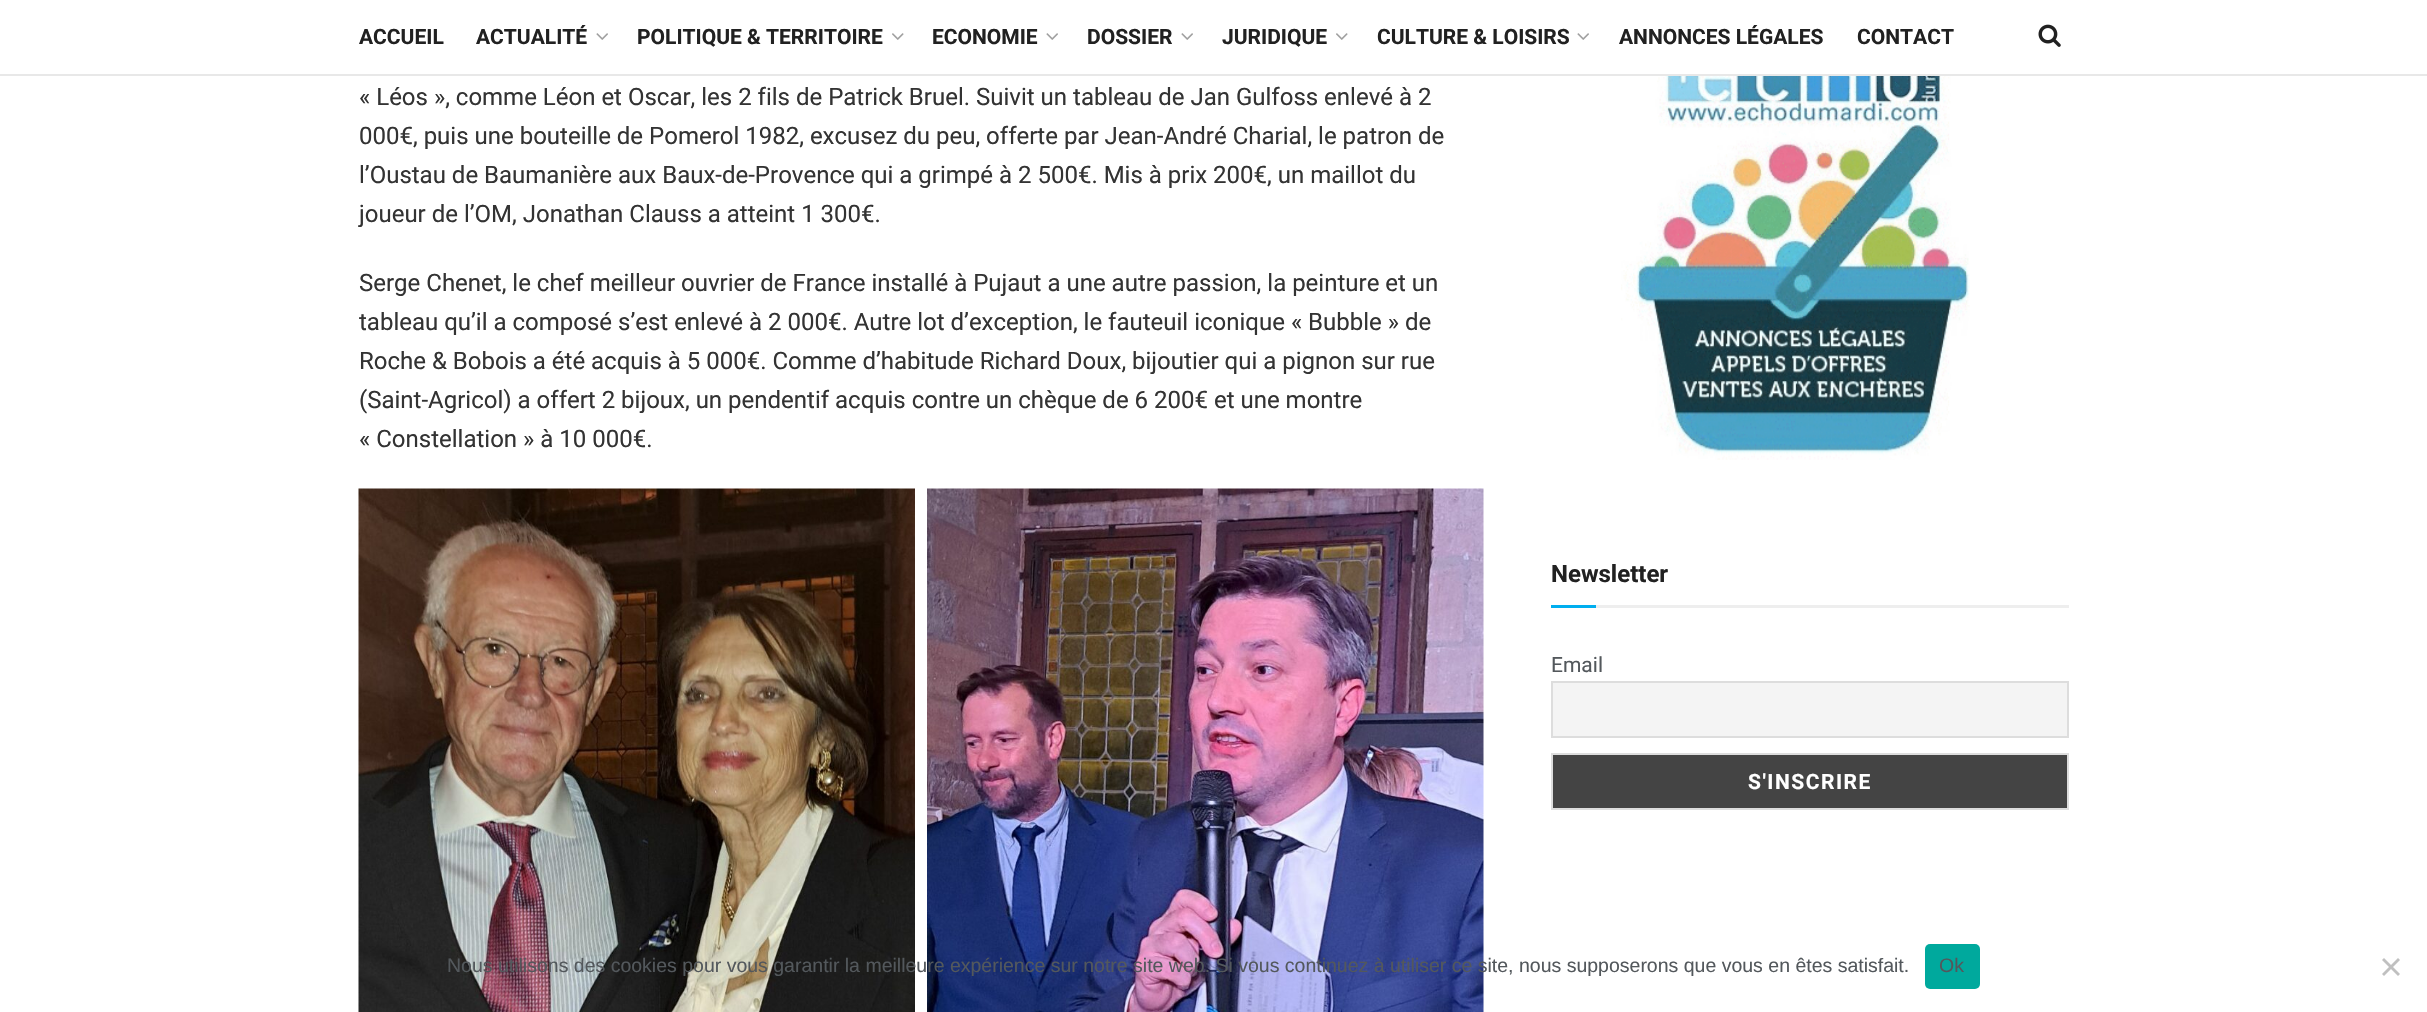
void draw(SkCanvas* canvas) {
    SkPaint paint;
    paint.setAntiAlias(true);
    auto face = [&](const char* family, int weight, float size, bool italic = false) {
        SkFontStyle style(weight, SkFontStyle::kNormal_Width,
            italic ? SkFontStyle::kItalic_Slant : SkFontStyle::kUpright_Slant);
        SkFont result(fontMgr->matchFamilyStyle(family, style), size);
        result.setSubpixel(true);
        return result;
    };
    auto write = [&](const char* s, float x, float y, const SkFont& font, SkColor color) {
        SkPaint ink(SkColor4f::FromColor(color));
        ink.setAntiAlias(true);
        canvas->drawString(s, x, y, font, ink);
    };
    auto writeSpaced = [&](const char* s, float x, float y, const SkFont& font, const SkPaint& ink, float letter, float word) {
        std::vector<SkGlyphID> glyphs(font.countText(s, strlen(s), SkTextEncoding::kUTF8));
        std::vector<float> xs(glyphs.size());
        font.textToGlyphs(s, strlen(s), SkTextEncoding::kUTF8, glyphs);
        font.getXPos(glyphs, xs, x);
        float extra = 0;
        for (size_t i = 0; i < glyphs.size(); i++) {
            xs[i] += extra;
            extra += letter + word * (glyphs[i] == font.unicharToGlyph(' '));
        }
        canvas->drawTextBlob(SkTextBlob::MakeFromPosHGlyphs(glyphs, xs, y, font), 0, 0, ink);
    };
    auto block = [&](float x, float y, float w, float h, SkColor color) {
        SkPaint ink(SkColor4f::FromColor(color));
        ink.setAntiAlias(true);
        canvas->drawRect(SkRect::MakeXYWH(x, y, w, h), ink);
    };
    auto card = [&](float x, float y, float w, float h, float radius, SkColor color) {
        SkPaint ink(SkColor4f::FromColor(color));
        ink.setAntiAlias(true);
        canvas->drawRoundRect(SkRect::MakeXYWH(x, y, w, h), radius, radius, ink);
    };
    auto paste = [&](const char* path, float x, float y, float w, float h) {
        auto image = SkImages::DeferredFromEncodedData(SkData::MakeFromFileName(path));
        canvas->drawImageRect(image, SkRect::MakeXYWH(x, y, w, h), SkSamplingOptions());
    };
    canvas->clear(SK_ColorWHITE);
    block(0, 74, 2427, 2, SkColorSetRGB(232, 232, 232));
    auto kFont1 = face("Roboto", 700, 21);
    write("ACCUEIL", 359, 44, kFont1, SkColorSetRGB(33, 33, 33));
    write("ACTUALITÉ", 476, 44, kFont1, SkColorSetRGB(33, 33, 33));
    paste("pic1.png", 596, 33, 12, 7);
    write("POLITIQUE & TERRITOIRE", 637, 44, kFont1, SkColorSetRGB(33, 33, 33));
    paste("pic2.png", 892, 33, 12, 7);
    write("ECONOMIE", 932, 44, kFont1, SkColorSetRGB(33, 33, 33));
    paste("pic1.png", 1046, 33, 12, 7);
    write("DOSSIER", 1087, 44, kFont1, SkColorSetRGB(33, 33, 33));
    paste("pic1.png", 1181, 33, 12, 7);
    write("JURIDIQUE", 1222, 44, kFont1, SkColorSetRGB(33, 33, 33));
    paste("pic2.png", 1336, 33, 12, 7);
    write("CULTURE & LOISIRS", 1377, 44, kFont1, SkColorSetRGB(33, 33, 33));
    paste("pic1.png", 1577, 33, 12, 7);
    write("ANNONCES LÉGALES", 1619, 44, kFont1, SkColorSetRGB(33, 33, 33));
    write("CONTACT", 1857, 44, kFont1, SkColorSetRGB(33, 33, 33));
    paste("pic3.png", 2038, 24, 23, 23);
    auto kFont2 = face("Roboto", 400, 24);
    write("« Léos », comme Léon et Oscar, les 2 fils de Patrick Bruel. Suivit un tableau de Jan Gulfoss enlevé à 2", 359, 105, kFont2, SkColorSetRGB(51, 51, 51));
    write("000€, puis une bouteille de Pomerol 1982, excusez du peu, offerte par Jean-André Charial, le patron de", 359, 144, kFont2, SkColorSetRGB(51, 51, 51));
    write("l’Oustau de Baumanière aux Baux-de-Provence qui a grimpé à 2 500€. Mis à prix 200€, un maillot du", 359, 183, kFont2, SkColorSetRGB(51, 51, 51));
    write("joueur de l’OM, Jonathan Clauss a atteint 1 300€.", 359, 222, kFont2, SkColorSetRGB(51, 51, 51));
    write("Serge Chenet, le chef meilleur ouvrier de France installé à Pujaut a une autre passion, la peinture et un", 359, 291, kFont2, SkColorSetRGB(51, 51, 51));
    write("tableau qu’il a composé s’est enlevé à 2 000€. Autre lot d’exception, le fauteuil iconique « Bubble » de", 359, 330, kFont2, SkColorSetRGB(51, 51, 51));
    write("Roche & Bobois a été acquis à 5 000€. Comme d’habitude Richard Doux, bijoutier qui a pignon sur rue", 359, 369, kFont2, SkColorSetRGB(51, 51, 51));
    write("(Saint-Agricol) a offert 2 bijoux, un pendentif acquis contre un chèque de 6 200€ et une montre", 359, 408, kFont2, SkColorSetRGB(51, 51, 51));
    write("« Constellation » à 10 000€.", 359, 447, kFont2, SkColorSetRGB(51, 51, 51));
    paste("pic4.png", 358, 488, 557, 524);
    paste("pic5.png", 927, 488, 557, 524);
    paste("pic6.png", 1621, 76, 349, 384);
    block(1596, 605, 473, 3, SkColorSetRGB(238, 238, 238));
    auto kFont3 = face("Roboto", 700, 24);
    write("Newsletter", 1551, 582, kFont3, SkColorSetRGB(33, 33, 33));
    block(1551, 605, 45, 3, SkColorSetRGB(0, 174, 239));
    auto kFont4 = face("Roboto", 400, 21);
    write("Email", 1551, 672, kFont4, SkColorSetRGB(83, 88, 92));
    paint.setColor(SkColorSetRGB(244, 244, 244));
    canvas->drawRect(SkRect::MakeXYWH(1552, 682, 516, 55), paint);
    paint.setStyle(SkPaint::kStroke_Style);
    paint.setStrokeWidth(2);
    paint.setColor(SkColorSetRGB(221, 221, 221));
    canvas->drawRect(SkRect::MakeXYWH(1552, 682, 516, 55), paint);
    paint.setStyle(SkPaint::kFill_Style);
    paint.setColor(SkColorSetRGB(68, 68, 68));
    canvas->drawRect(SkRect::MakeXYWH(1552, 754, 516, 55), paint);
    paint.setStyle(SkPaint::kStroke_Style);
    paint.setColor(SkColorSetRGB(221, 221, 221));
    canvas->drawRect(SkRect::MakeXYWH(1552, 754, 516, 55), paint);
    paint.setStyle(SkPaint::kFill_Style);
    paint.setColor(SK_ColorWHITE);
    writeSpaced("S'INSCRIRE", 1748, 789, kFont1, paint, 1.5f, 0);
    auto kFont5 = face("Liberation Sans", 400, 19.5f);
    write("Nous utilisons des cookies pour vous garantir la meilleure expérience sur notre site web. Si vous continuez à utiliser ce site, nous supposerons que vous en êtes satisfait.", 447, 972, kFont5, SkColorSetRGB(83, 88, 92));
    card(1925, 944, 55, 45, 5, SkColorSetRGB(0, 169, 157));
    write("Ok", 1939, 972, kFont5, SkColorSetRGB(83, 88, 92));
    paint.setColor(SkColorSetRGB(192, 192, 192));
    canvas->drawPath(SkPathBuilder().moveTo(2398, 958).lineTo(2400, 960).lineTo(2384, 976).lineTo(2382, 974).close().detach(), paint);
    canvas->drawPath(SkPathBuilder().moveTo(2382, 960).lineTo(2384, 958).lineTo(2400, 974).lineTo(2398, 976).close().detach(), paint);
}
